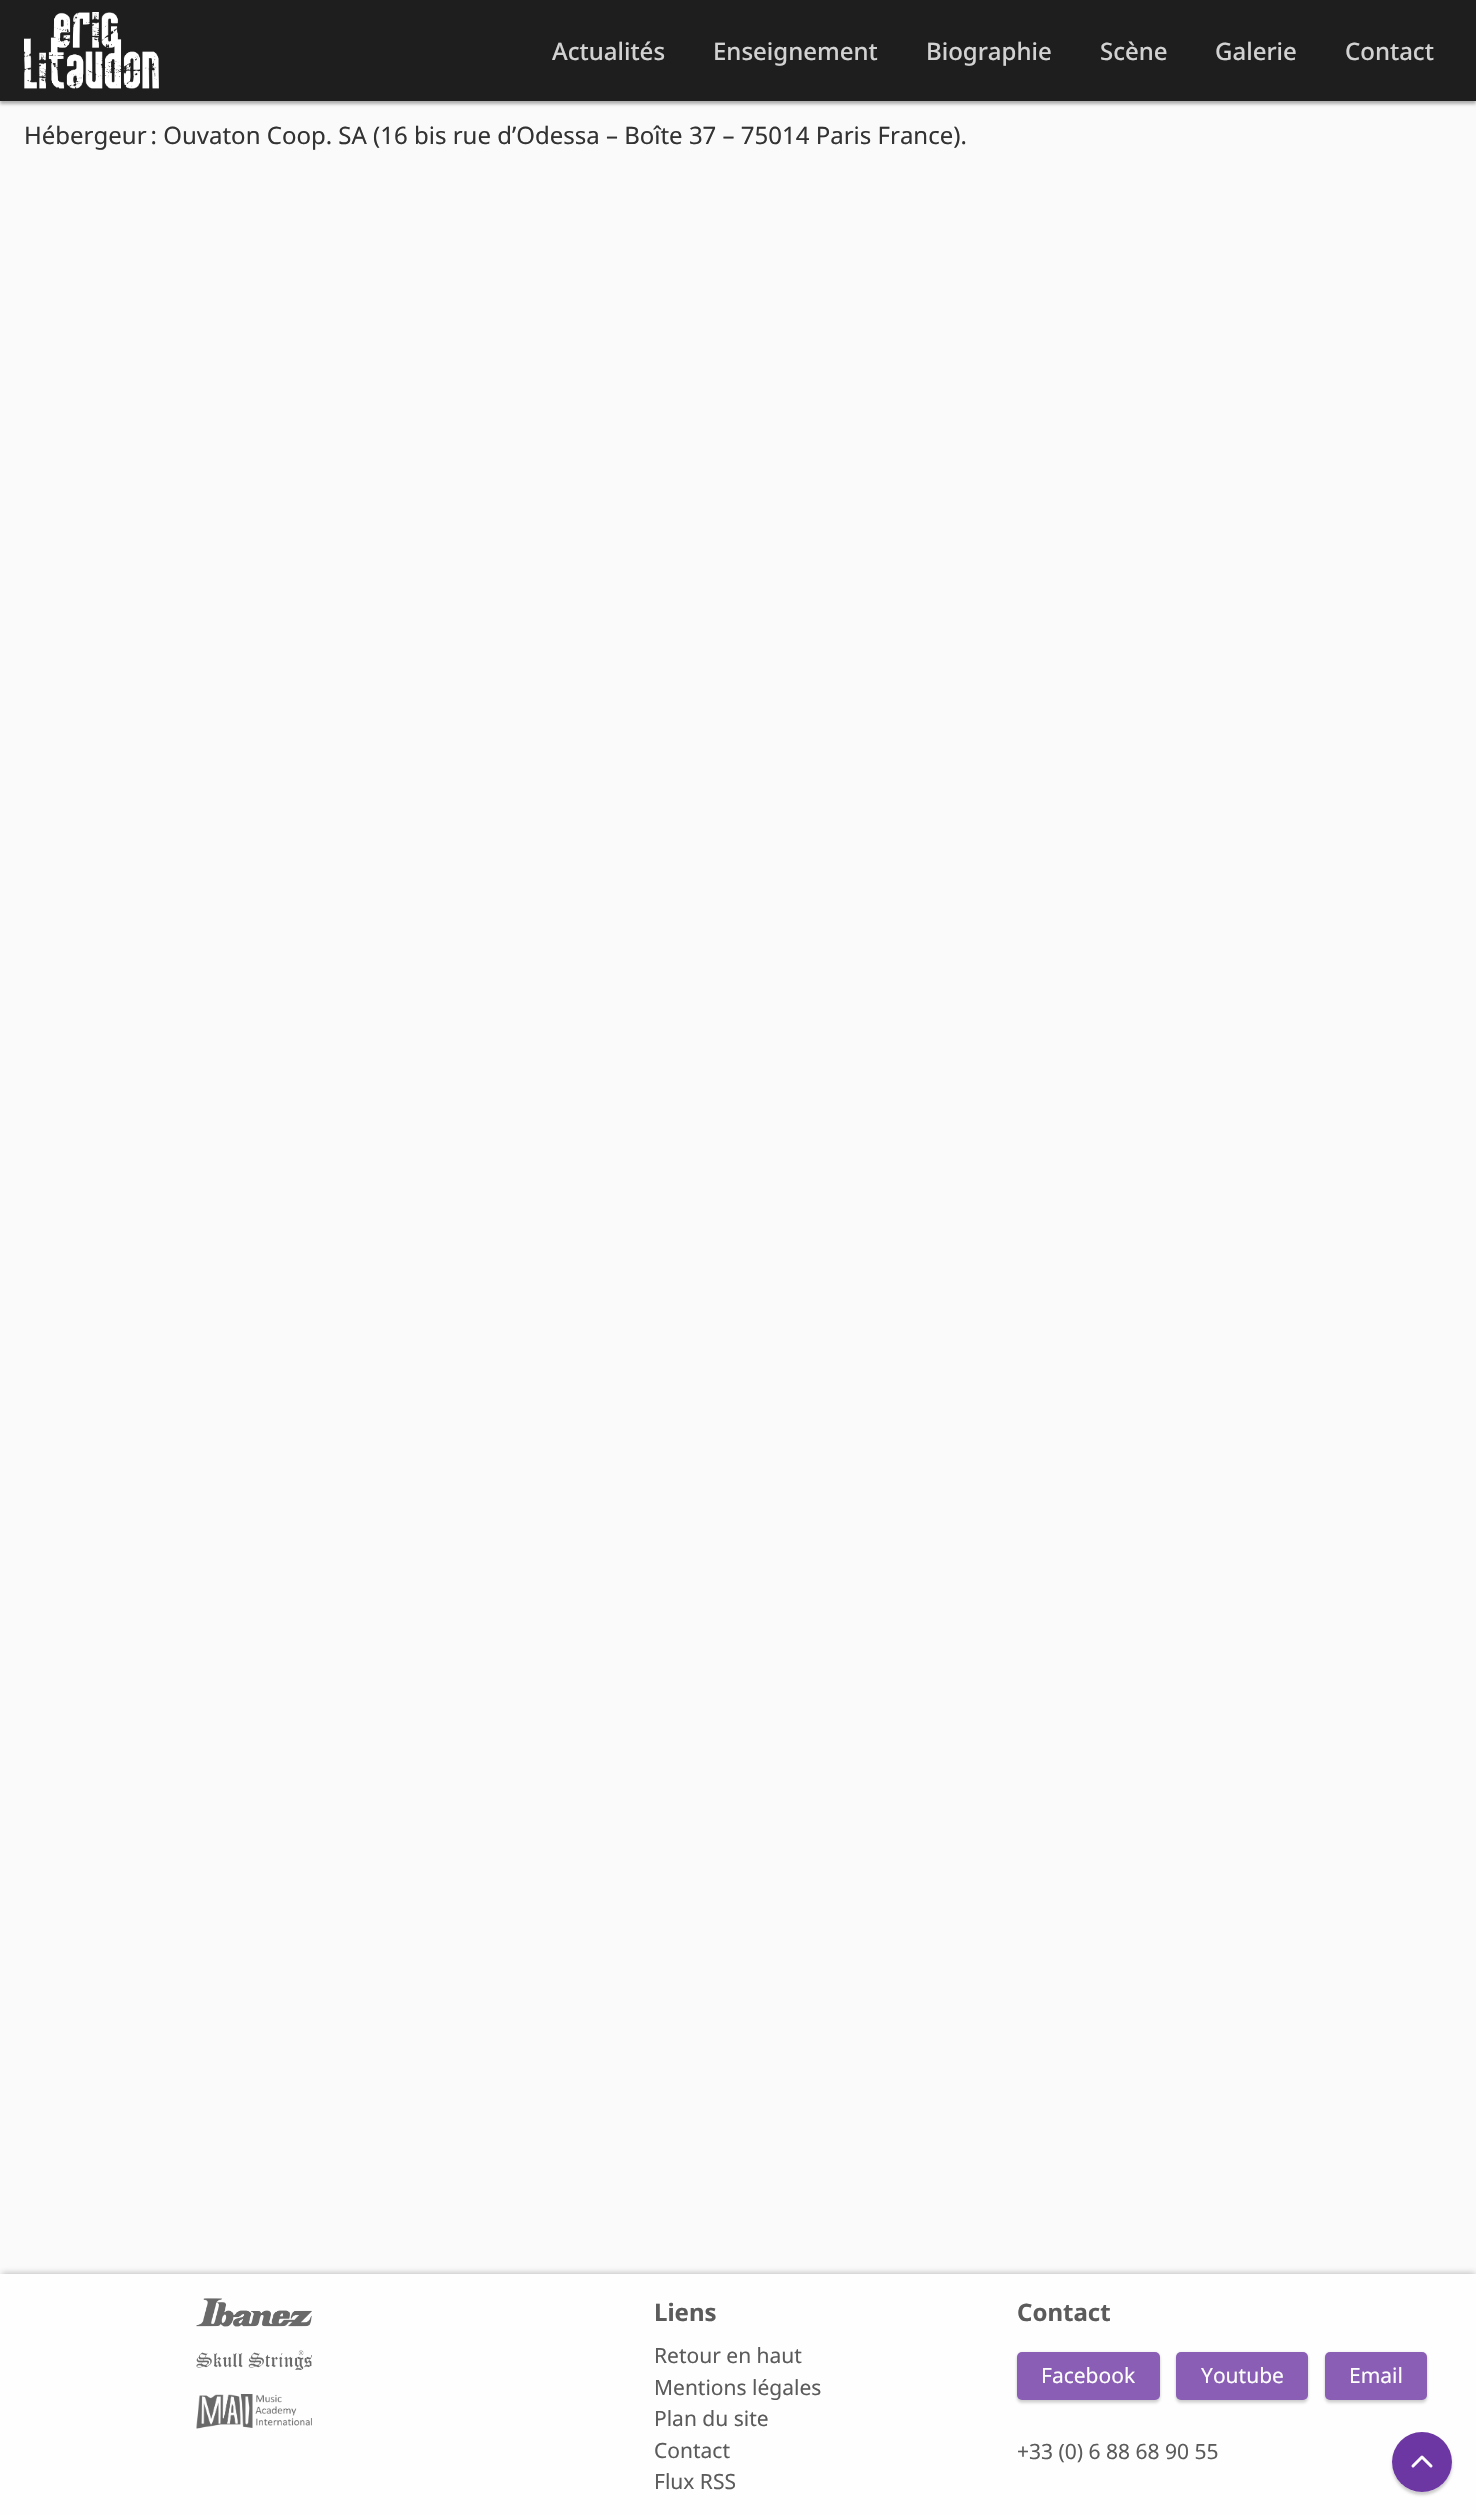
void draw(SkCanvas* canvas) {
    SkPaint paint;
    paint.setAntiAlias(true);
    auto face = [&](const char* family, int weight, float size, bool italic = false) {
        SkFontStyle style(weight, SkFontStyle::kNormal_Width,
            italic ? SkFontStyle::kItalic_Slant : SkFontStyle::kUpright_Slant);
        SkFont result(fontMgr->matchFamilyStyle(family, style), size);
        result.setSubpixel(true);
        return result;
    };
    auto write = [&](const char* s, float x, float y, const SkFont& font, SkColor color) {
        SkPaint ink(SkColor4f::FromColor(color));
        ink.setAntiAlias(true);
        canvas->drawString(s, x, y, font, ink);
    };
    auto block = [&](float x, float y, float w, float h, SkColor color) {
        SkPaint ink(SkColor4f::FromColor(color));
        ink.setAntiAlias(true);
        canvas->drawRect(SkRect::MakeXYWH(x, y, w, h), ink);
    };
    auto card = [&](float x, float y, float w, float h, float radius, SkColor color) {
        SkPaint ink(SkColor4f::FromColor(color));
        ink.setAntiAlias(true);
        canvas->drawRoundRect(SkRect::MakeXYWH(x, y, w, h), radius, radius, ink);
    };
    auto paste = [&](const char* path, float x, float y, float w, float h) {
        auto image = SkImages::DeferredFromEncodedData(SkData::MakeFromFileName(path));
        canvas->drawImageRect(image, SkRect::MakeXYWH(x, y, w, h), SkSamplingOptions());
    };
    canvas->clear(SkColorSetRGB(250, 250, 250));
    paint.setColor(SkColorSetARGB(77, 0, 0, 0));
    paint.setMaskFilter(SkMaskFilter::MakeBlur(kNormal_SkBlurStyle, 1.5f));
    canvas->drawRect(SkRect::MakeXYWH(0, 3, 1476, 101), paint);
    paint.setMaskFilter(nullptr);
    block(0, 0, 1476, 101, SkColorSetRGB(30, 30, 30));
    paste("pic1.png", 24, 12, 135, 77);
    auto kFont1 = face("Noto Sans", 500, 24);
    write("Actualités", 552, 60, kFont1, SkColorSetRGB(210, 210, 210));
    write("Enseignement", 713, 60, kFont1, SkColorSetRGB(210, 210, 210));
    write("Biographie", 926, 60, kFont1, SkColorSetRGB(210, 210, 210));
    write("Scène", 1100, 60, kFont1, SkColorSetRGB(210, 210, 210));
    write("Galerie", 1215, 60, kFont1, SkColorSetRGB(210, 210, 210));
    write("Contact", 1345, 60, kFont1, SkColorSetRGB(210, 210, 210));
    auto kFont2 = face("Noto Sans", 400, 24);
    write("Hébergeur : Ouvaton Coop. SA (16 bis rue d’Odessa – Boîte 37 – 75014 Paris France).", 24, 144, kFont2, SkColorSetRGB(50, 50, 50));
    paint.setColor(SkColorSetARGB(77, 50, 50, 50));
    paint.setMaskFilter(SkMaskFilter::MakeBlur(kNormal_SkBlurStyle, 3));
    canvas->drawRect(SkRect::MakeXYWH(2, 2273, 1473, 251), paint);
    paint.setMaskFilter(nullptr);
    block(0, 2274, 1476, 241, SkColorSetRGB(254, 254, 254));
    paste("pic2.png", 196, 2298, 116, 29);
    paste("pic3.png", 196, 2350, 116, 20);
    paste("pic4.png", 196, 2394, 116, 35);
    auto kFont3 = face("Noto Sans", 700, 24);
    write("Liens", 654, 2321, kFont3, SkColorSetRGB(91, 91, 91));
    auto kFont4 = face("Noto Sans", 400, 21);
    write("Retour en haut", 654, 2363, kFont4, SkColorSetRGB(91, 91, 91));
    write("Mentions légales", 654, 2395, kFont4, SkColorSetRGB(91, 91, 91));
    write("Plan du site", 654, 2426, kFont4, SkColorSetRGB(91, 91, 91));
    write("Contact", 654, 2458, kFont4, SkColorSetRGB(91, 91, 91));
    write("Flux RSS", 654, 2489, kFont4, SkColorSetRGB(91, 91, 91));
    write("Contact", 1017, 2321, kFont3, SkColorSetRGB(91, 91, 91));
    paint.setColor(SkColorSetARGB(51, 50, 50, 50));
    paint.setMaskFilter(SkMaskFilter::MakeBlur(kNormal_SkBlurStyle, 1.5f));
    canvas->drawRoundRect(SkRect::MakeXYWH(1017, 2355, 143, 48), 5, 5, paint);
    paint.setMaskFilter(nullptr);
    paint.setColor(SkColorSetARGB(26, 50, 50, 50));
    paint.setMaskFilter(SkMaskFilter::MakeBlur(kNormal_SkBlurStyle, 1.5f));
    canvas->drawRoundRect(SkRect::MakeXYWH(1017, 2352, 143, 48), 5, 5, paint);
    paint.setMaskFilter(nullptr);
    card(1017, 2352, 143, 48, 5, SkColorSetRGB(137, 94, 180));
    write("Facebook", 1041, 2383, kFont4, SkColorSetRGB(254, 254, 254));
    paint.setColor(SkColorSetARGB(51, 50, 50, 50));
    paint.setMaskFilter(SkMaskFilter::MakeBlur(kNormal_SkBlurStyle, 1.5f));
    canvas->drawRoundRect(SkRect::MakeXYWH(1176, 2355, 132, 48), 5, 5, paint);
    paint.setMaskFilter(nullptr);
    paint.setColor(SkColorSetARGB(26, 50, 50, 50));
    paint.setMaskFilter(SkMaskFilter::MakeBlur(kNormal_SkBlurStyle, 1.5f));
    canvas->drawRoundRect(SkRect::MakeXYWH(1176, 2352, 132, 48), 5, 5, paint);
    paint.setMaskFilter(nullptr);
    card(1176, 2352, 132, 48, 5, SkColorSetRGB(137, 94, 180));
    write("Youtube", 1201, 2383, kFont4, SkColorSetRGB(254, 254, 254));
    paint.setColor(SkColorSetARGB(51, 50, 50, 50));
    paint.setMaskFilter(SkMaskFilter::MakeBlur(kNormal_SkBlurStyle, 1.5f));
    canvas->drawRoundRect(SkRect::MakeXYWH(1325, 2355, 102, 48), 5, 5, paint);
    paint.setMaskFilter(nullptr);
    paint.setColor(SkColorSetARGB(26, 50, 50, 50));
    paint.setMaskFilter(SkMaskFilter::MakeBlur(kNormal_SkBlurStyle, 1.5f));
    canvas->drawRoundRect(SkRect::MakeXYWH(1325, 2352, 102, 48), 5, 5, paint);
    paint.setMaskFilter(nullptr);
    card(1325, 2352, 102, 48, 5, SkColorSetRGB(137, 94, 180));
    write("Email", 1349, 2383, kFont4, SkColorSetRGB(254, 254, 254));
    write("+33 (0) 6 88 68 90 55", 1017, 2459, kFont4, SkColorSetRGB(91, 91, 91));
    canvas->save();
    canvas->clipPath(SkPathBuilder(SkPathFillType::kEvenOdd).moveTo(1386, 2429).lineTo(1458, 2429).lineTo(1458, 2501).lineTo(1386, 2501).close().moveTo(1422, 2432).cubicTo(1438.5f, 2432, 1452, 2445.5f, 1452, 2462).cubicTo(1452, 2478.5f, 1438.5f, 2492, 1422, 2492).cubicTo(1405.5f, 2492, 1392, 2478.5f, 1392, 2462).cubicTo(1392, 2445.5f, 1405.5f, 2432, 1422, 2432).close().detach(), true);
    paint.setColor(SkColorSetARGB(51, 0, 0, 0));
    paint.setMaskFilter(SkMaskFilter::MakeBlur(kNormal_SkBlurStyle, 1.5f));
    canvas->drawRoundRect(SkRect::MakeXYWH(1392, 2435, 60, 60), 30, 30, paint);
    paint.setMaskFilter(nullptr);
    canvas->restore();
    paint.setColor(SkColorSetRGB(109, 55, 163));
    canvas->drawCircle(1422, 2462, 30, paint);
    paint.setStyle(SkPaint::kStroke_Style);
    paint.setStrokeWidth(3);
    paint.setStrokeCap(SkPaint::kRound_Cap);
    paint.setStrokeJoin(SkPaint::kRound_Join);
    paint.setColor(SK_ColorWHITE);
    canvas->drawPath(SkPathBuilder().moveTo(1431, 2466).lineTo(1422, 2457).lineTo(1413, 2466).detach(), paint);
}
